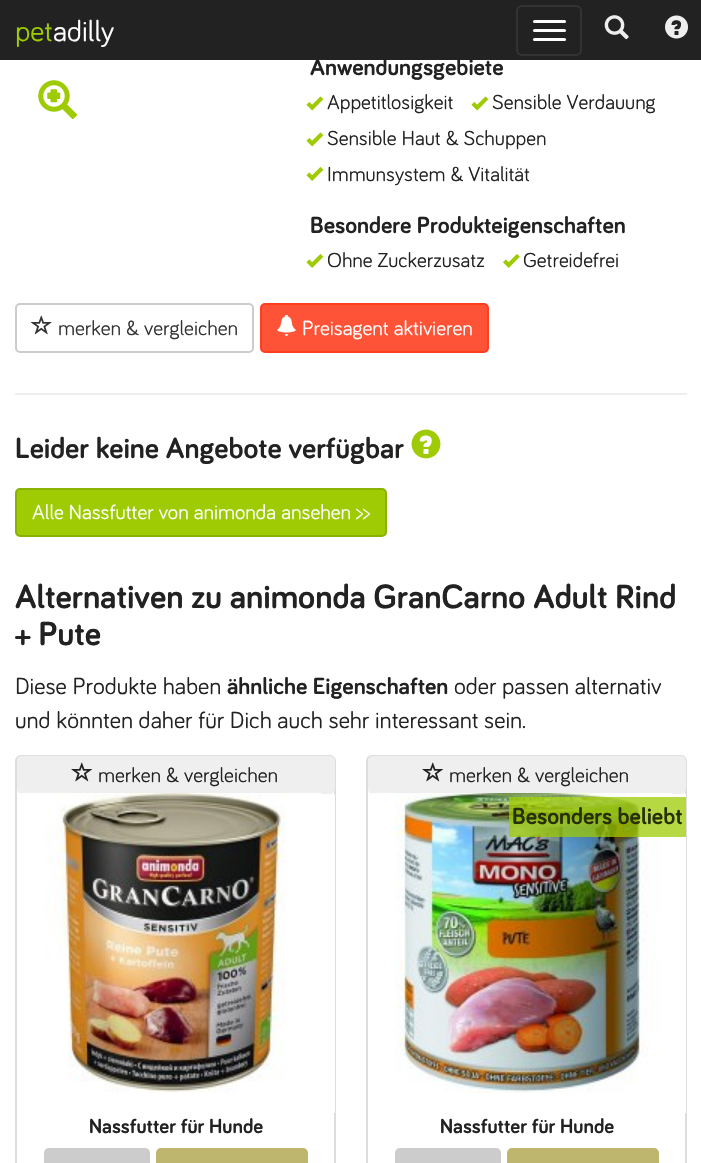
void draw(SkCanvas* canvas) {
    SkPaint paint;
    paint.setAntiAlias(true);
    auto face = [&](const char* family, int weight, float size, bool italic = false) {
        SkFontStyle style(weight, SkFontStyle::kNormal_Width,
            italic ? SkFontStyle::kItalic_Slant : SkFontStyle::kUpright_Slant);
        SkFont result(fontMgr->matchFamilyStyle(family, style), size);
        result.setSubpixel(true);
        return result;
    };
    auto write = [&](const char* s, float x, float y, const SkFont& font, SkColor color) {
        SkPaint ink(SkColor4f::FromColor(color));
        ink.setAntiAlias(true);
        canvas->drawString(s, x, y, font, ink);
    };
    auto block = [&](float x, float y, float w, float h, SkColor color) {
        SkPaint ink(SkColor4f::FromColor(color));
        ink.setAntiAlias(true);
        canvas->drawRect(SkRect::MakeXYWH(x, y, w, h), ink);
    };
    auto card = [&](float x, float y, float w, float h, float radius, SkColor color) {
        SkPaint ink(SkColor4f::FromColor(color));
        ink.setAntiAlias(true);
        canvas->drawRoundRect(SkRect::MakeXYWH(x, y, w, h), radius, radius, ink);
    };
    auto paste = [&](const char* path, float x, float y, float w, float h) {
        auto image = SkImages::DeferredFromEncodedData(SkData::MakeFromFileName(path));
        canvas->drawImageRect(image, SkRect::MakeXYWH(x, y, w, h), SkSamplingOptions());
    };
    canvas->clear(SK_ColorWHITE);
    block(0, 0, 701, 60, SkColorSetRGB(34, 34, 34));
    auto kFont1 = face("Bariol", 400, 30);
    write("pet", 15, 41, kFont1, SkColorSetRGB(158, 203, 3));
    write("adilly", 53, 41, kFont1, SK_ColorWHITE);
    paint.setStyle(SkPaint::kStroke_Style);
    paint.setStrokeWidth(2);
    paint.setColor(SkColorSetRGB(51, 51, 51));
    canvas->drawRoundRect(SkRect::MakeXYWH(517, 6, 64, 49), 5, 5, paint);
    card(533, 20, 33, 3, 1.5f, SK_ColorWHITE);
    card(533, 29, 33, 3, 1.5f, SK_ColorWHITE);
    card(533, 38, 33, 3, 1.5f, SK_ColorWHITE);
    paste("pic1.png", 604, 15, 25, 25);
    paste("pic2.png", 665, 15, 23, 24);
    paste("pic3.png", 38, 80, 40, 40);
    auto kFont2 = face("Bariol", 700, 24);
    write("Anwendungsgebiete", 310, 75, kFont2, SkColorSetRGB(34, 34, 34));
    paste("pic4.png", 306, 96, 18, 15);
    auto kFont3 = face("Bariol", 400, 20.9f);
    write("Appetitlosigkeit", 327, 109, kFont3, SkColorSetRGB(34, 34, 34));
    paste("pic4.png", 471, 96, 18, 15);
    write("Sensible Verdauung", 492, 109, kFont3, SkColorSetRGB(34, 34, 34));
    paste("pic4.png", 306, 132, 18, 15);
    write("Sensible Haut & Schuppen", 327, 145, kFont3, SkColorSetRGB(34, 34, 34));
    paste("pic5.png", 306, 167, 18, 14);
    write("Immunsystem & Vitalität", 327, 181, kFont3, SkColorSetRGB(34, 34, 34));
    write("Besondere Produkteigenschaften", 310, 233, kFont2, SkColorSetRGB(34, 34, 34));
    paste("pic5.png", 306, 254, 18, 14);
    write("Ohne Zuckerzusatz", 327, 267, kFont3, SkColorSetRGB(34, 34, 34));
    paste("pic6.png", 503, 254, 17, 14);
    write("Getreidefrei", 523, 267, kFont3, SkColorSetRGB(34, 34, 34));
    paint.setColor(SkColorSetRGB(204, 204, 204));
    canvas->drawRoundRect(SkRect::MakeXYWH(16, 304, 237, 48), 4, 4, paint);
    paste("pic7.png", 30, 315, 22, 20);
    auto kFont4 = face("Bariol", 400, 21);
    write("merken & vergleichen", 58, 335, kFont4, SkColorSetRGB(51, 51, 51));
    paint.setStyle(SkPaint::kFill_Style);
    paint.setColor(SkColorSetRGB(255, 83, 56));
    canvas->drawRoundRect(SkRect::MakeXYWH(261, 304, 227, 48), 4, 4, paint);
    paint.setStyle(SkPaint::kStroke_Style);
    paint.setColor(SkColorSetRGB(255, 61, 31));
    canvas->drawRoundRect(SkRect::MakeXYWH(261, 304, 227, 48), 4, 4, paint);
    paste("pic8.png", 277, 315, 19, 21);
    write("Preisagent aktivieren", 302, 335, kFont4, SK_ColorWHITE);
    block(15, 393, 672, 2, SkColorSetRGB(238, 238, 238));
    auto kFont5 = face("Bariol", 700, 30);
    write("Leider keine Angebote verfügbar", 15, 458, kFont5, SkColorSetRGB(34, 34, 34));
    paste("pic9.png", 411, 429, 30, 30);
    paint.setStyle(SkPaint::kFill_Style);
    paint.setColor(SkColorSetRGB(158, 203, 3));
    canvas->drawRoundRect(SkRect::MakeXYWH(16, 489, 370, 47), 4, 4, paint);
    paint.setStyle(SkPaint::kStroke_Style);
    paint.setColor(SkColorSetRGB(138, 178, 3));
    canvas->drawRoundRect(SkRect::MakeXYWH(16, 489, 370, 47), 4, 4, paint);
    write("Alle Nassfutter von animonda ansehen >>", 32, 519, kFont4, SK_ColorWHITE);
    auto kFont6 = face("Bariol", 700, 34.5f);
    write("Alternativen zu animonda GranCarno Adult Rind", 15, 608, kFont6, SkColorSetRGB(34, 34, 34));
    write("+ Pute", 15, 645, kFont6, SkColorSetRGB(34, 34, 34));
    auto kFont7 = face("Bariol", 400, 24);
    write("Diese Produkte haben", 15, 694, kFont7, SkColorSetRGB(34, 34, 34));
    write("ähnliche Eigenschaften", 227, 694, kFont2, SkColorSetRGB(34, 34, 34));
    write("oder passen alternativ", 454, 694, kFont7, SkColorSetRGB(34, 34, 34));
    write("und könnten daher für Dich auch sehr interessant sein.", 15, 728, kFont7, SkColorSetRGB(34, 34, 34));
    paint.setColor(SkColorSetRGB(221, 221, 221));
    canvas->drawRoundRect(SkRect::MakeXYWH(16, 756, 319, 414), 5, 5, paint);
    card(17, 756, 318, 38, 5, SkColorSetRGB(239, 239, 239));
    paste("pic10.png", 71, 762, 21, 20);
    write("merken & vergleichen", 98, 782, kFont4, SkColorSetRGB(34, 34, 34));
    block(334, 794, 1, 319, SK_ColorWHITE);
    paste("pic11.png", 21, 793, 300, 300);
    auto kFont8 = face("Bariol", 700, 20.9f);
    write("Nassfutter für Hunde", 89, 1133, kFont8, SkColorSetRGB(34, 34, 34));
    card(44, 1148, 106, 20, 5, SkColorSetRGB(204, 204, 204));
    card(156, 1148, 152, 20, 5, SkColorSetRGB(190, 182, 110));
    canvas->drawRoundRect(SkRect::MakeXYWH(367, 756, 319, 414), 5, 5, paint);
    card(368, 756, 318, 38, 5, SkColorSetRGB(239, 239, 239));
    paste("pic10.png", 422, 762, 21, 20);
    write("merken & vergleichen", 449, 782, kFont4, SkColorSetRGB(34, 34, 34));
    block(685, 794, 1, 319, SK_ColorWHITE);
    paste("pic12.png", 372, 793, 300, 300);
    block(509, 797, 177, 40, SkColorSetARGB(191, 158, 203, 3));
    write("Besonders beliebt", 512, 824, kFont2, SkColorSetRGB(38, 48, 9));
    write("Nassfutter für Hunde", 440, 1133, kFont8, SkColorSetRGB(34, 34, 34));
    card(395, 1148, 106, 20, 5, SkColorSetRGB(204, 204, 204));
    card(507, 1148, 152, 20, 5, SkColorSetRGB(190, 182, 110));
}
